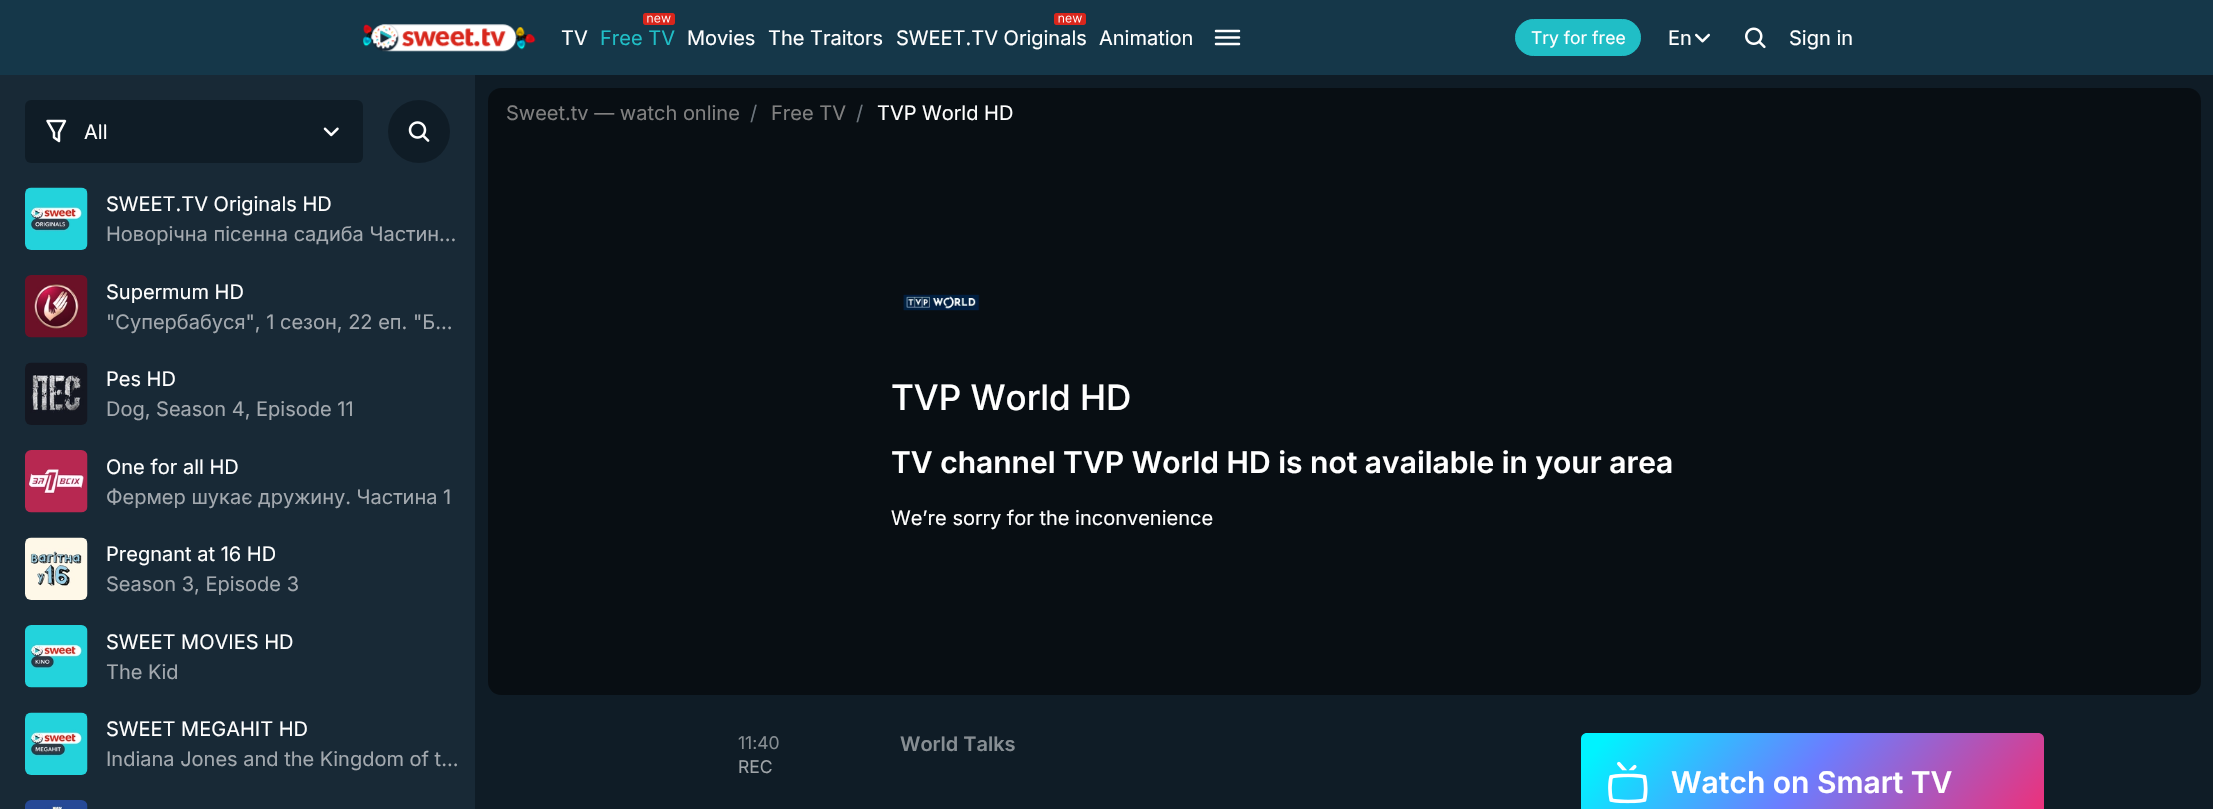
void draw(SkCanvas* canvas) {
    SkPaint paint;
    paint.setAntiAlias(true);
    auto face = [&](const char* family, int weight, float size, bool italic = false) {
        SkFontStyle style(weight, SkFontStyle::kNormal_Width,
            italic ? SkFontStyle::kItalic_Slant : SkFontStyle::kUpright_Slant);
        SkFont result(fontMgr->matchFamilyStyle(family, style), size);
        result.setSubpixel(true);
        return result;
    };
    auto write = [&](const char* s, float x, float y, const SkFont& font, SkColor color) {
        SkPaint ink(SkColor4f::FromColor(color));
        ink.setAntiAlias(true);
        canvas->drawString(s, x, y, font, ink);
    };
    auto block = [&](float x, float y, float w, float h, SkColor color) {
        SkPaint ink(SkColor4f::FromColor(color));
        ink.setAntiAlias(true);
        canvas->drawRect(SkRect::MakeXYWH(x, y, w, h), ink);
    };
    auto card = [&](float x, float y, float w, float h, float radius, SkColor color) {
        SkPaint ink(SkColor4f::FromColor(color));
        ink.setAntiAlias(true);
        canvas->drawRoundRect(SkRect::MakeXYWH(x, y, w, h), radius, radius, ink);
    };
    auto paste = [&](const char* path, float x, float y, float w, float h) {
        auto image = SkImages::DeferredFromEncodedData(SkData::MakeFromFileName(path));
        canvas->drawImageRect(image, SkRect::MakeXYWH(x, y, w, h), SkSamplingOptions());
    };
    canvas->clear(SkColorSetRGB(15, 28, 38));
    block(0, 0, 2213, 75, SkColorSetRGB(21, 55, 73));
    paste("pic1.png", 363, 24, 173, 28);
    auto kFont1 = face("Inter", 400, 20);
    write("TV", 561, 45, kFont1, SK_ColorWHITE);
    paste("pic2.png", 643, 13, 32, 12);
    write("Free TV", 600, 45, kFont1, SkColorSetRGB(32, 190, 198));
    write("Movies", 687, 45, kFont1, SK_ColorWHITE);
    write("The Traitors", 768, 45, kFont1, SK_ColorWHITE);
    paste("pic3.png", 1054, 13, 32, 12);
    write("SWEET.TV Originals", 896, 45, kFont1, SK_ColorWHITE);
    write("Animation", 1099, 45, kFont1, SK_ColorWHITE);
    paint.setStyle(SkPaint::kStroke_Style);
    paint.setStrokeWidth(2.5f);
    paint.setStrokeCap(SkPaint::kRound_Cap);
    paint.setColor(SK_ColorWHITE);
    canvas->drawPath(SkPathBuilder().moveTo(1216, 31).lineTo(1239, 31).moveTo(1216, 37.5f).lineTo(1239, 37.5f).moveTo(1216, 44).lineTo(1239, 44).detach(), paint);
    paint.setStyle(SkPaint::kFill_Style);
    paint.setColor(SkColorSetRGB(32, 190, 198));
    canvas->drawRoundRect(SkRect::MakeXYWH(1515.5f, 19.5f, 125, 36), 18, 18, paint);
    paint.setStyle(SkPaint::kStroke_Style);
    paint.setStrokeWidth(1);
    paint.setStrokeCap(SkPaint::kButt_Cap);
    canvas->drawRoundRect(SkRect::MakeXYWH(1515.5f, 19.5f, 125, 36), 18, 18, paint);
    auto kFont2 = face("Inter", 400, 17.5f);
    write("Try for free", 1531, 44, kFont2, SK_ColorWHITE);
    write("En", 1668, 45, kFont1, SK_ColorWHITE);
    paste("pic4.png", 1695, 33, 15, 10);
    paste("pic5.png", 1745, 27, 21, 22);
    write("Sign in", 1789, 45, kFont1, SK_ColorWHITE);
    block(0, 75, 475, 734, SkColorSetRGB(24, 41, 54));
    card(25, 100, 338, 63, 6, SkColorSetRGB(15, 28, 38));
    paint.setStrokeWidth(2.5f);
    paint.setStrokeJoin(SkPaint::kRound_Join);
    paint.setColor(SK_ColorWHITE);
    canvas->drawPath(SkPathBuilder().moveTo(65, 121).lineTo(47.5f, 121).lineTo(54, 132.5f).lineTo(54, 137.5f).lineTo(59, 141).lineTo(59, 132.5f).close().detach(), paint);
    write("All", 84, 139, kFont1, SK_ColorWHITE);
    paste("pic6.png", 323, 127, 16, 10);
    card(388, 100, 62, 63, 31, SkColorSetRGB(15, 28, 38));
    paste("pic7.png", 408, 121, 22, 21);
    paste("pic8.png", 25, 187, 63, 63);
    write("SWEET.TV Originals HD", 106, 211, kFont1, SK_ColorWHITE);
    write("Новорічна пісенна садиба Частин…", 106, 241, kFont1, SkColorSetRGB(163, 169, 175));
    paste("pic9.png", 25, 275, 63, 63);
    write("Supermum HD", 106, 299, kFont1, SK_ColorWHITE);
    write("\"Супербабуся\", 1 сезон, 22 еп. \"Б…", 106, 329, kFont1, SkColorSetRGB(163, 169, 175));
    paste("pic10.png", 25, 362, 63, 63);
    write("Pes HD", 106, 386, kFont1, SK_ColorWHITE);
    write("Dog, Season 4, Episode 11", 106, 416, kFont1, SkColorSetRGB(163, 169, 175));
    paste("pic11.png", 25, 450, 63, 63);
    write("One for all HD", 106, 474, kFont1, SK_ColorWHITE);
    write("Фермер шукає дружину. Частина 1", 106, 504, kFont1, SkColorSetRGB(163, 169, 175));
    paste("pic12.png", 25, 537, 63, 63);
    write("Pregnant at 16 HD", 106, 561, kFont1, SK_ColorWHITE);
    write("Season 3, Episode 3", 106, 591, kFont1, SkColorSetRGB(163, 169, 175));
    paste("pic13.png", 25, 625, 63, 63);
    write("SWEET MOVIES HD", 106, 649, kFont1, SK_ColorWHITE);
    write("The Kid", 106, 679, kFont1, SkColorSetRGB(163, 169, 175));
    paste("pic14.png", 25, 712, 63, 63);
    write("SWEET MEGAHIT HD", 106, 736, kFont1, SK_ColorWHITE);
    write("Indiana Jones and the Kingdom of t…", 106, 766, kFont1, SkColorSetRGB(163, 169, 175));
    paste("pic15.png", 25, 800, 63, 9);
    card(488, 88, 1713, 607, 13, SkColorSetRGB(8, 14, 19));
    write("Sweet.tv — watch online", 506, 120, kFont1, SkColorSetRGB(128, 128, 128));
    write("/", 750, 120, kFont1, SkColorSetRGB(108, 117, 125));
    write("Free TV", 771, 120, kFont1, SkColorSetRGB(128, 128, 128));
    write("/", 856, 120, kFont1, SkColorSetRGB(108, 117, 125));
    write("TVP World HD", 877, 120, kFont1, SK_ColorWHITE);
    paste("pic16.png", 903, 294, 77, 17);
    auto kFont3 = face("Inter", 500, 35);
    write("TVP World HD", 891, 410, kFont3, SK_ColorWHITE);
    auto kFont4 = face("Inter", 600, 30);
    write("TV channel TVP World HD is not available in your area", 891, 473, kFont4, SK_ColorWHITE);
    write("We’re sorry for the inconvenience", 891, 525, kFont1, SK_ColorWHITE);
    write("11:40", 738, 749, kFont2, SkColorSetRGB(135, 142, 147));
    write("REC", 738, 773, kFont2, SkColorSetRGB(159, 164, 168));
    auto kFont5 = face("Inter", 600, 20);
    write("World Talks", 900, 751, kFont5, SkColorSetRGB(135, 142, 147));
    paint.setStyle(SkPaint::kFill_Style);
    {
        const SkColor colors[] = {SkColorSetRGB(0, 243, 255), SkColorSetRGB(107, 125, 255), SkColorSetRGB(255, 38, 104)};
        const float stops[] = {0.05f, 0.46f, 1};
        const SkPoint ends[] = {{1648, 650}, {1988, 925}};
        paint.setShader(SkGradientShader::MakeLinear(ends, colors, stops, 3, SkTileMode::kClamp));
        paint.setAlpha(255);
    }
    canvas->drawPath(SkPathBuilder().moveTo(1587, 733).lineTo(2038, 733).cubicTo(2041.5f, 733, 2044, 735.5f, 2044, 739).lineTo(2044, 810).lineTo(1581, 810).lineTo(1581, 739).cubicTo(1581, 735.5f, 1583.5f, 733, 1587, 733).close().detach(), paint);
    paste("pic17.png", 1608, 761, 40, 43);
    write("Watch on Smart TV", 1671, 793, kFont4, SK_ColorWHITE);
}
